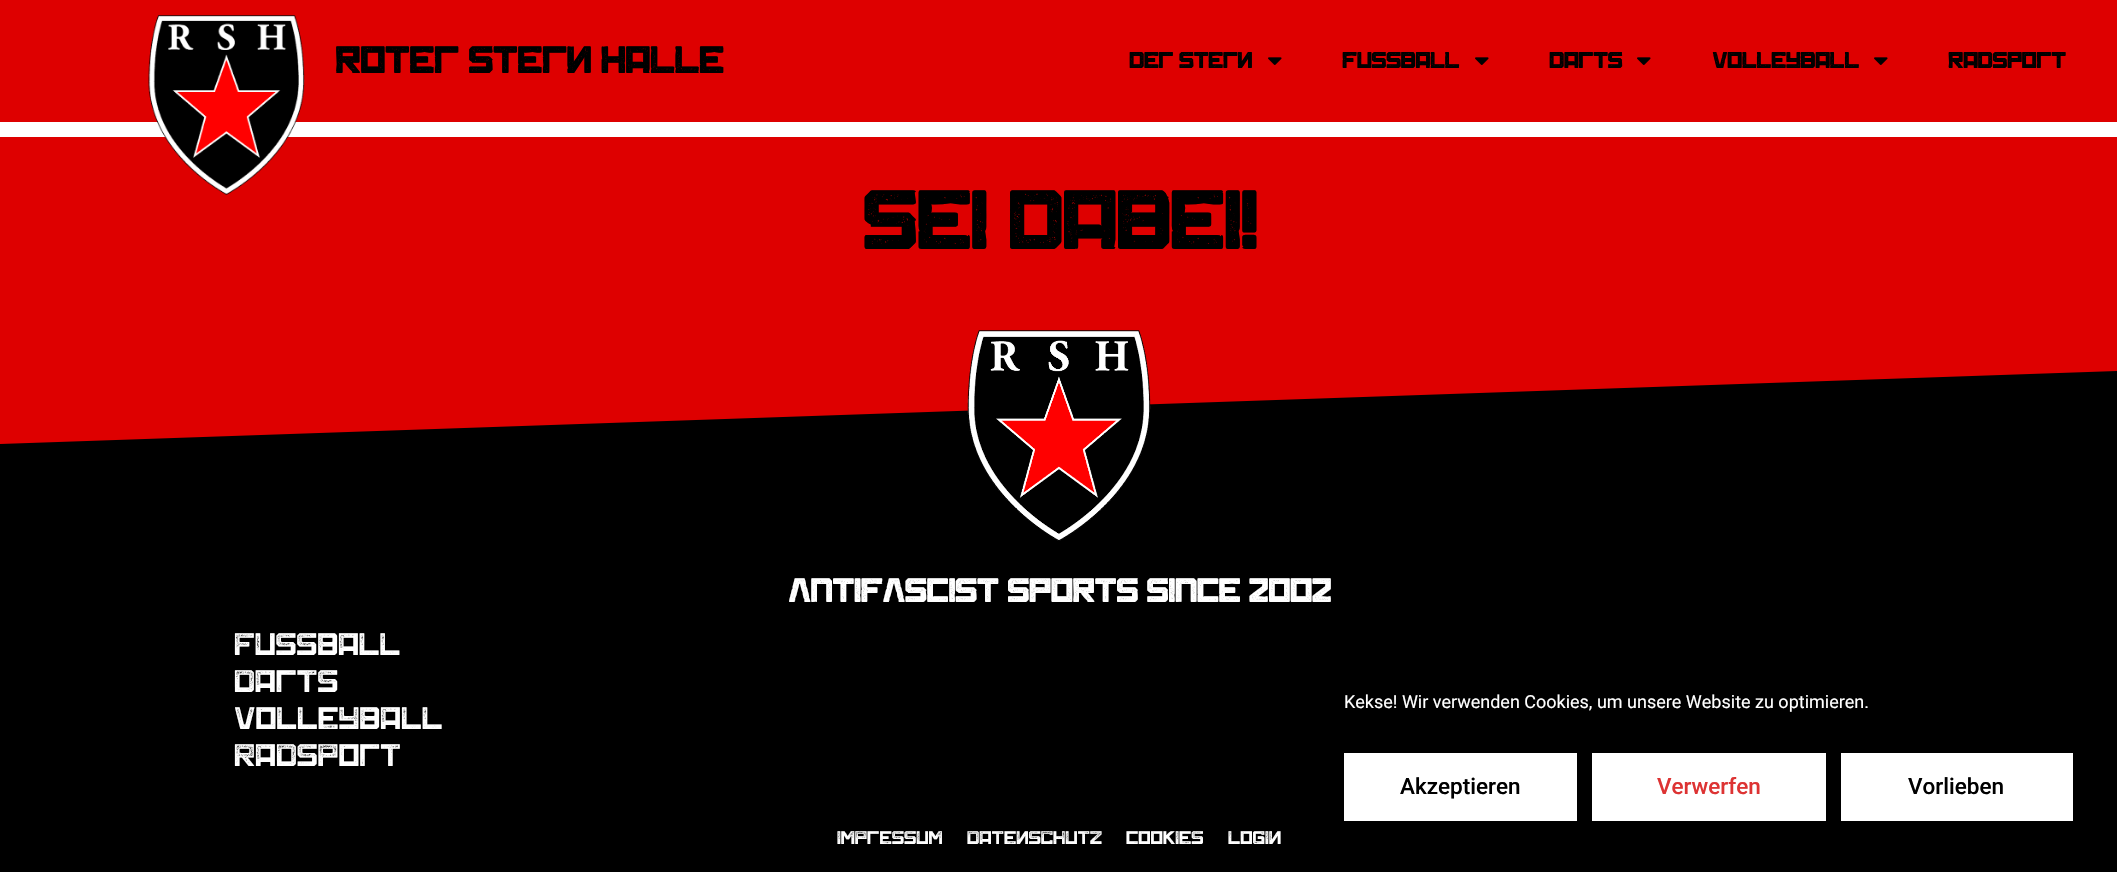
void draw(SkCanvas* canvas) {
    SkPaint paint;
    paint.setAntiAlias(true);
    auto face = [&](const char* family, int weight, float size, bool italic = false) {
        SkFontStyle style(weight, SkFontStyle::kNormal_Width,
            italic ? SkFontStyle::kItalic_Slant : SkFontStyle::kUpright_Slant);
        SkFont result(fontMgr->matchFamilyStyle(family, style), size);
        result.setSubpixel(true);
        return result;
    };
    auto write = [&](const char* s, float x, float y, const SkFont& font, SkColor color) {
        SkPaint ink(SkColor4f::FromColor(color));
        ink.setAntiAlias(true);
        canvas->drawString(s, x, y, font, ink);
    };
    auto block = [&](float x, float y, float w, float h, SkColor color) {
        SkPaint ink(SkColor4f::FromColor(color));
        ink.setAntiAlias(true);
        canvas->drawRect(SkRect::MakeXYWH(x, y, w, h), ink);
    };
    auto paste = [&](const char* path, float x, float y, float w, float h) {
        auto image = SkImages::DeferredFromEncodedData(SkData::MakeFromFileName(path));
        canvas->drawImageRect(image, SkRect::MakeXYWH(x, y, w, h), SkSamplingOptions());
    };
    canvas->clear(SK_ColorWHITE);
    block(0, 0, 2117, 122, SkColorSetRGB(222, 0, 0));
    block(0, 137, 2117, 229, SkColorSetRGB(222, 0, 0));
    paste("pic1.png", 148, 15, 157, 180);
    auto kFont1 = face("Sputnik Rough", 700, 39);
    write("Roter Stern Halle", 335, 73, kFont1, SK_ColorBLACK);
    auto kFont2 = face("Sputnik Rough", 700, 23.25f);
    write("Der Stern", 1129, 68, kFont2, SK_ColorBLACK);
    paste("pic2.png", 1268, 57, 14, 8);
    write("Fussball", 1342, 68, kFont2, SK_ColorBLACK);
    paste("pic2.png", 1475, 57, 14, 8);
    write("Darts", 1549, 68, kFont2, SK_ColorBLACK);
    paste("pic2.png", 1637, 57, 14, 8);
    write("Volleyball", 1712, 68, kFont2, SK_ColorBLACK);
    paste("pic2.png", 1874, 57, 14, 8);
    write("Radsport", 1948, 68, kFont2, SK_ColorBLACK);
    auto kFont3 = face("Sputnik Rough", 700, 85.5f);
    write("Sei dabei!", 862, 249, kFont3, SK_ColorBLACK);
    block(0, 371, 2117, 501, SK_ColorBLACK);
    paint.setColor(SkColorSetRGB(222, 0, 0));
    canvas->drawPath(SkPathBuilder().moveTo(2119, 371).lineTo(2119, 366).lineTo(-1, 366).lineTo(-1, 444).close().detach(), paint);
    paste("pic3.png", 967, 330, 184, 211);
    auto kFont4 = face("Sputnik Rough", 700, 34.5f);
    write("ANTIFASCIST SPORTS SINCE 2002", 788, 602, kFont4, SK_ColorWHITE);
    auto kFont5 = face("Sputnik Rough", 400, 33);
    write("Fussball", 234, 655, kFont5, SK_ColorWHITE);
    write("Darts", 234, 692, kFont5, SK_ColorWHITE);
    write("Volleyball", 234, 729, kFont5, SK_ColorWHITE);
    write("Radsport", 234, 766, kFont5, SK_ColorWHITE);
    auto kFont6 = face("Sputnik Rough", 400, 19.5f);
    write("Impressum", 837, 844, kFont6, SK_ColorWHITE);
    write("Datenschutz", 967, 844, kFont6, SK_ColorWHITE);
    write("Cookies", 1126, 844, kFont6, SK_ColorWHITE);
    write("Login", 1228, 844, kFont6, SK_ColorWHITE);
    auto kFont7 = face("Roboto", 400, 18);
    write("Kekse! Wir verwenden Cookies, um unsere Website zu optimieren.", 1344, 708, kFont7, SK_ColorWHITE);
    block(1344, 753, 233, 68, SK_ColorWHITE);
    auto kFont8 = face("Roboto", 500, 22.5f);
    write("Akzeptieren", 1400, 794, kFont8, SK_ColorBLACK);
    block(1592, 753, 234, 68, SK_ColorWHITE);
    write("Verwerfen", 1657, 794, kFont8, SkColorSetRGB(221, 51, 51));
    block(1841, 753, 232, 68, SK_ColorWHITE);
    write("Vorlieben", 1908, 794, kFont8, SK_ColorBLACK);
}
